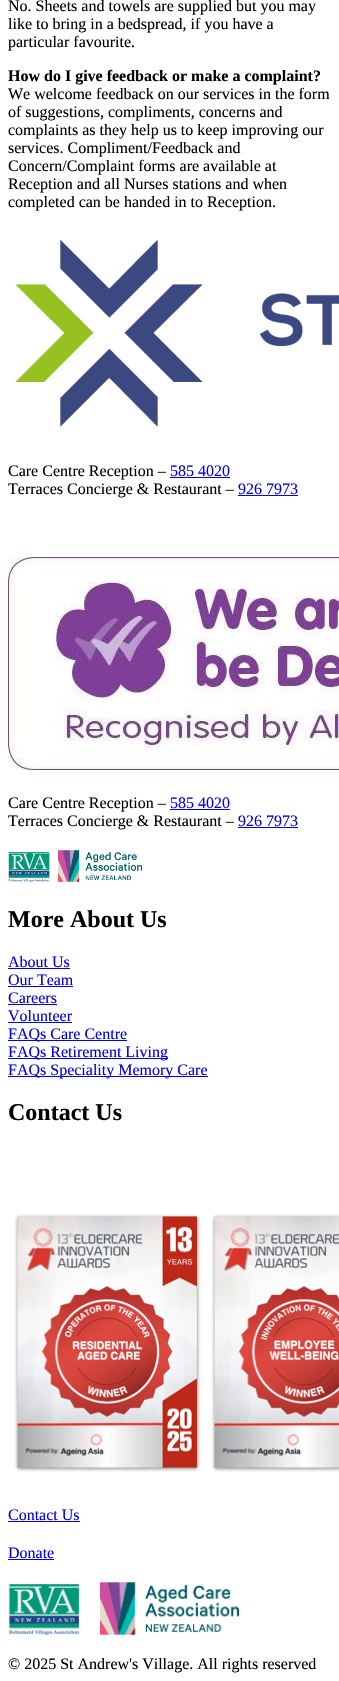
void draw(SkCanvas* canvas) {
    SkPaint paint;
    paint.setAntiAlias(true);
    auto face = [&](const char* family, int weight, float size, bool italic = false) {
        SkFontStyle style(weight, SkFontStyle::kNormal_Width,
            italic ? SkFontStyle::kItalic_Slant : SkFontStyle::kUpright_Slant);
        SkFont result(fontMgr->matchFamilyStyle(family, style), size);
        result.setSubpixel(true);
        return result;
    };
    auto write = [&](const char* s, float x, float y, const SkFont& font, SkColor color) {
        SkPaint ink(SkColor4f::FromColor(color));
        ink.setAntiAlias(true);
        canvas->drawString(s, x, y, font, ink);
    };
    auto block = [&](float x, float y, float w, float h, SkColor color) {
        SkPaint ink(SkColor4f::FromColor(color));
        ink.setAntiAlias(true);
        canvas->drawRect(SkRect::MakeXYWH(x, y, w, h), ink);
    };
    auto paste = [&](const char* path, float x, float y, float w, float h) {
        auto image = SkImages::DeferredFromEncodedData(SkData::MakeFromFileName(path));
        canvas->drawImageRect(image, SkRect::MakeXYWH(x, y, w, h), SkSamplingOptions());
    };
    canvas->clear(SK_ColorWHITE);
    auto kFont1 = face("Liberation Serif", 400, 16);
    write("No. Sheets and towels are supplied but you may", 8, 11, kFont1, SK_ColorBLACK);
    write("like to bring in a bedspread, if you have a", 8, 29, kFont1, SK_ColorBLACK);
    write("particular favourite.", 8, 47, kFont1, SK_ColorBLACK);
    auto kFont2 = face("Liberation Serif", 700, 16);
    write("How do I give feedback or make a complaint?", 8, 81, kFont2, SK_ColorBLACK);
    write("We welcome feedback on our services in the form", 8, 99, kFont1, SK_ColorBLACK);
    write("of suggestions, compliments, concerns and", 8, 117, kFont1, SK_ColorBLACK);
    write("complaints as they help us to keep improving our", 8, 135, kFont1, SK_ColorBLACK);
    write("services. Compliment/Feedback and", 8, 153, kFont1, SK_ColorBLACK);
    write("Concern/Complaint forms are available at", 8, 171, kFont1, SK_ColorBLACK);
    write("Reception and all Nurses stations and when", 8, 189, kFont1, SK_ColorBLACK);
    write("completed can be handed in to Reception.", 8, 207, kFont1, SK_ColorBLACK);
    paste("pic1.png", 15, 239, 324, 188);
    write("Care Centre Reception –", 8, 476, kFont1, SK_ColorBLACK);
    write("585 4020", 170, 476, kFont1, SkColorSetRGB(0, 0, 238));
    block(170, 477, 60, 1, SkColorSetRGB(0, 0, 238));
    write("Terraces Concierge & Restaurant –", 8, 494, kFont1, SK_ColorBLACK);
    write("926 7973", 238, 494, kFont1, SkColorSetRGB(0, 0, 238));
    block(238, 495, 60, 1, SkColorSetRGB(0, 0, 238));
    paste("pic2.png", 8, 557, 331, 213);
    write("Care Centre Reception –", 8, 808, kFont1, SK_ColorBLACK);
    write("585 4020", 170, 808, kFont1, SkColorSetRGB(0, 0, 238));
    block(170, 809, 60, 1, SkColorSetRGB(0, 0, 238));
    write("Terraces Concierge & Restaurant –", 8, 826, kFont1, SK_ColorBLACK);
    write("926 7973", 238, 826, kFont1, SkColorSetRGB(0, 0, 238));
    block(238, 827, 60, 1, SkColorSetRGB(0, 0, 238));
    paste("pic3.png", 8, 852, 42, 30);
    paste("pic4.png", 58, 850, 84, 32);
    auto kFont3 = face("Liberation Serif", 700, 24);
    write("More About Us", 8, 927, kFont3, SK_ColorBLACK);
    write("About Us", 8, 967, kFont1, SkColorSetRGB(0, 0, 238));
    block(8, 968, 62, 1, SkColorSetRGB(0, 0, 238));
    write("Our Team", 8, 985, kFont1, SkColorSetRGB(0, 0, 238));
    block(8, 986, 65, 1, SkColorSetRGB(0, 0, 238));
    write("Careers", 8, 1003, kFont1, SkColorSetRGB(0, 0, 238));
    block(8, 1004, 49, 1, SkColorSetRGB(0, 0, 238));
    write("Volunteer", 8, 1021, kFont1, SkColorSetRGB(0, 0, 238));
    block(8, 1022, 64, 1, SkColorSetRGB(0, 0, 238));
    block(8, 1040, 119, 1, SkColorSetRGB(0, 0, 238));
    write("FAQs Care Centre", 8, 1039, kFont1, SkColorSetRGB(0, 0, 238));
    block(8, 1058, 160, 1, SkColorSetRGB(0, 0, 238));
    write("FAQs Retirement Living", 8, 1057, kFont1, SkColorSetRGB(0, 0, 238));
    block(8, 1076, 200, 1, SkColorSetRGB(0, 0, 238));
    write("FAQs Speciality Memory Care", 8, 1075, kFont1, SkColorSetRGB(0, 0, 238));
    write("Contact Us", 8, 1120, kFont3, SK_ColorBLACK);
    paste("pic5.png", 14, 1214, 325, 258);
    write("Contact Us", 8, 1520, kFont1, SkColorSetRGB(0, 0, 238));
    block(8, 1521, 72, 1, SkColorSetRGB(0, 0, 238));
    write("Donate", 8, 1558, kFont1, SkColorSetRGB(0, 0, 238));
    block(8, 1559, 46, 1, SkColorSetRGB(0, 0, 238));
    paste("pic6.png", 8, 1584, 72, 51);
    paste("pic7.png", 100, 1582, 139, 53);
    write("© 2025 St Andrew's Village. All rights reserved", 8, 1669, kFont1, SK_ColorBLACK);
}
